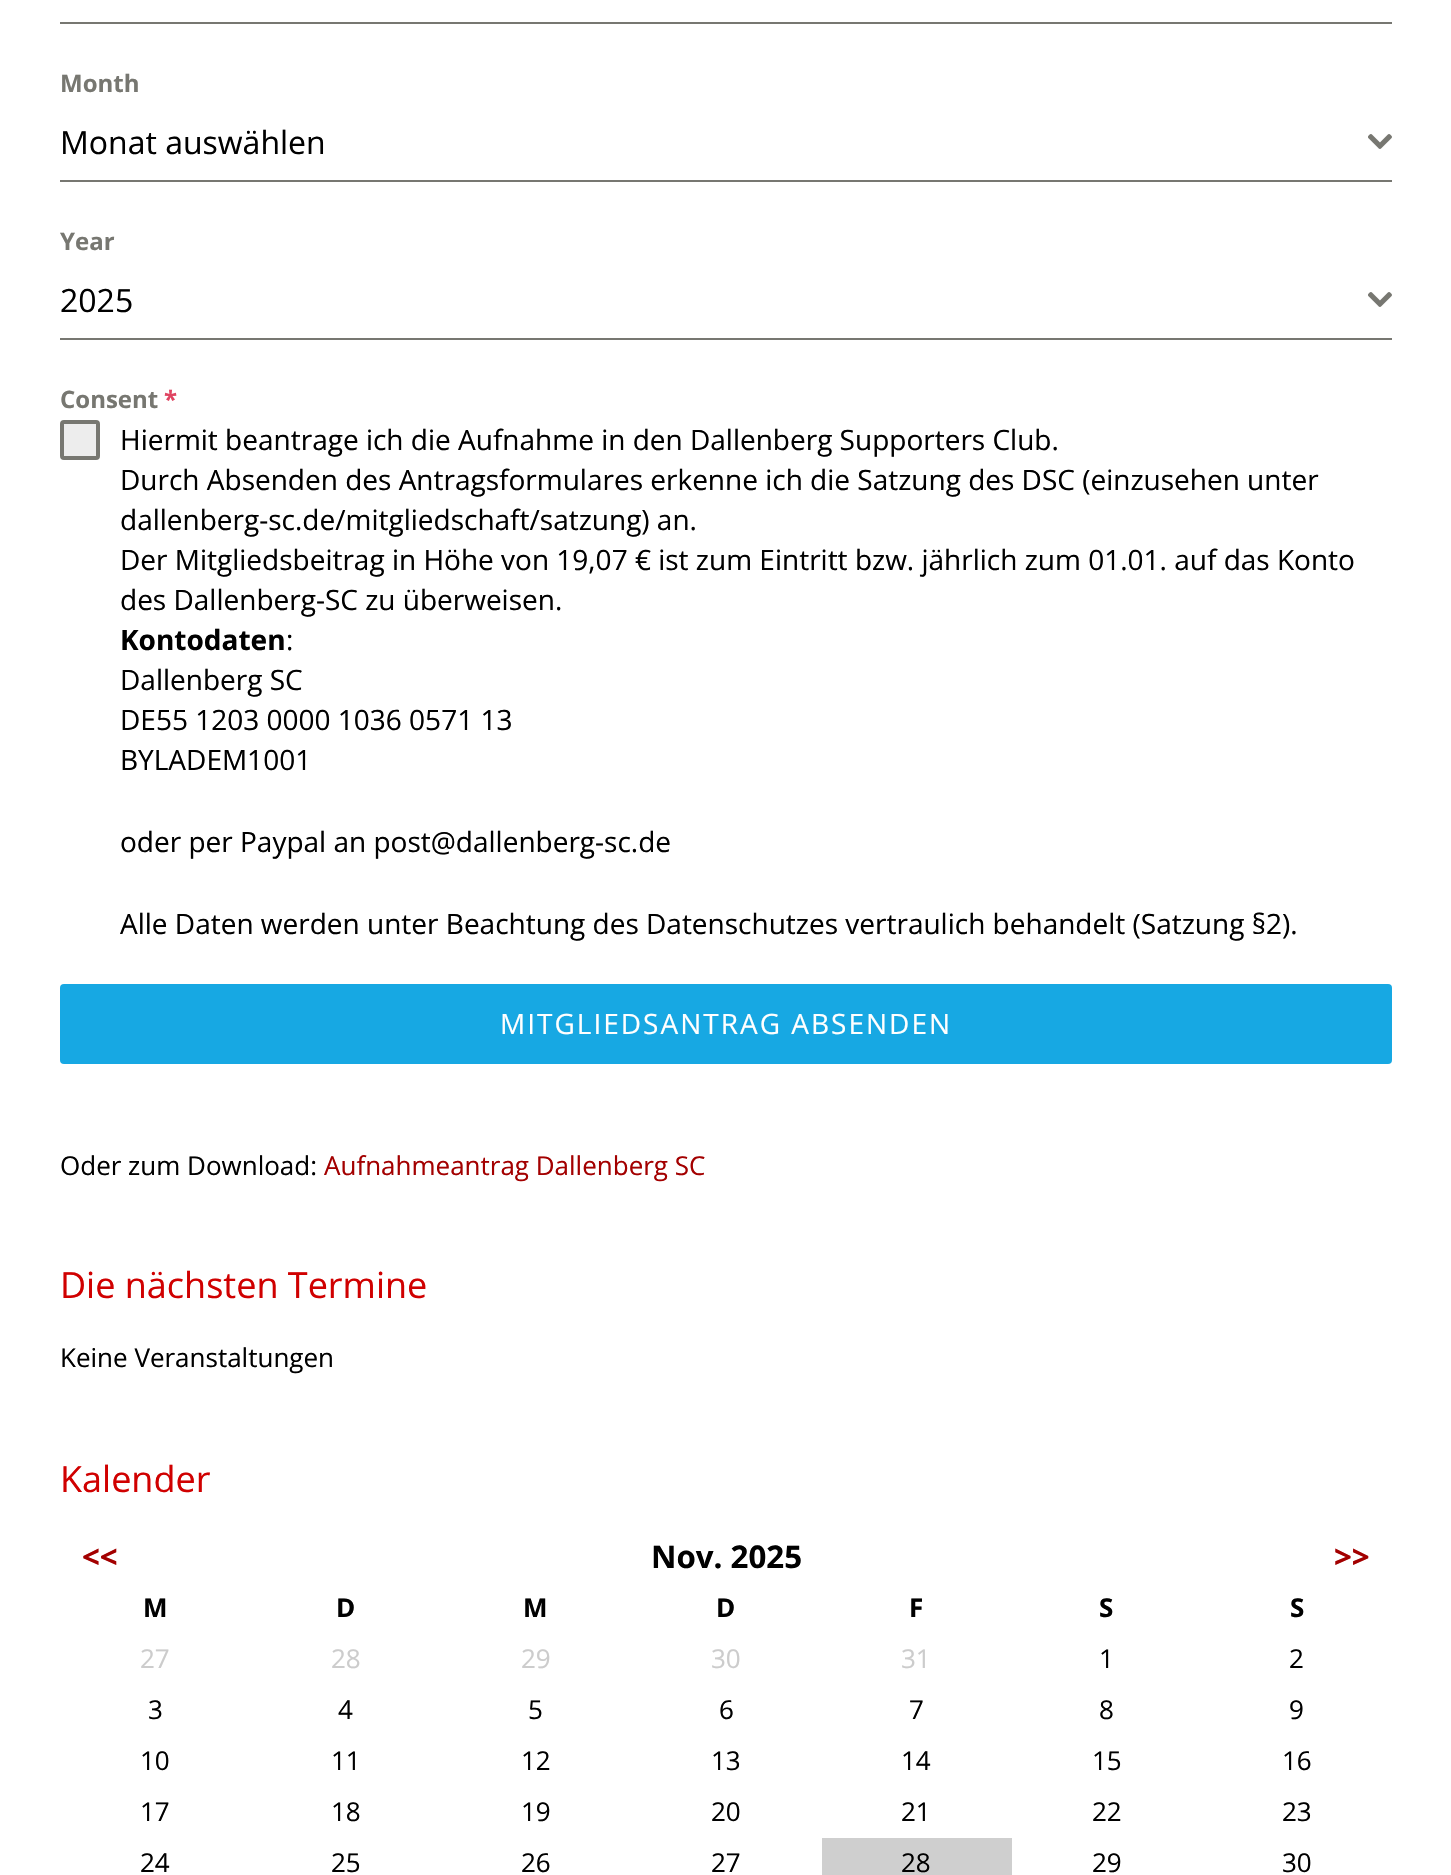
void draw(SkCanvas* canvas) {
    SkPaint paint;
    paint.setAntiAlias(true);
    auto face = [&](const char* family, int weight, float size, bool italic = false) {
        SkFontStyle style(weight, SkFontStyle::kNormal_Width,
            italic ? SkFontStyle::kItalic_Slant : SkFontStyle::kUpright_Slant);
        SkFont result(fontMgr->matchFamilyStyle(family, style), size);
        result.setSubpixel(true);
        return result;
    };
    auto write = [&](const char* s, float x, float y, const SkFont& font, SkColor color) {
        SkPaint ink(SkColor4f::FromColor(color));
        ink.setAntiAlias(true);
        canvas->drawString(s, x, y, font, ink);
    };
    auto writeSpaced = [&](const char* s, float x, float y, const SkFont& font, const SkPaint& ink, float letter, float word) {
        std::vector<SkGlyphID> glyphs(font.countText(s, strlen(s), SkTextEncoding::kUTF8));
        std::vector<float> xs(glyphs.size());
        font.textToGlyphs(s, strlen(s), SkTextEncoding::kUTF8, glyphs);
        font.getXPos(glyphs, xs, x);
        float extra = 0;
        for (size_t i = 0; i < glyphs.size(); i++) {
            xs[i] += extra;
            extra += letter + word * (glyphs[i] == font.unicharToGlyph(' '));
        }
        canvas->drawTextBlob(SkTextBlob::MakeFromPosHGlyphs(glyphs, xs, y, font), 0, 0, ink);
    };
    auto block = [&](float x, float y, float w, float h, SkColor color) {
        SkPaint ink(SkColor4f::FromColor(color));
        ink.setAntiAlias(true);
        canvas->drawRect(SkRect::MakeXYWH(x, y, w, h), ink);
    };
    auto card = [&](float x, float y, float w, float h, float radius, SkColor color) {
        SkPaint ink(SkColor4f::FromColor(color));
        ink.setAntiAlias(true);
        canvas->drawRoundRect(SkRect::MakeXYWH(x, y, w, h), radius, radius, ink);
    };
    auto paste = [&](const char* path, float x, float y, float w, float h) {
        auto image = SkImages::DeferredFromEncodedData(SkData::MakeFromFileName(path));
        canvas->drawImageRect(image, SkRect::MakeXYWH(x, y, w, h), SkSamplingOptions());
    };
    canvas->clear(SK_ColorWHITE);
    block(60, 22, 1332, 2, SkColorSetRGB(119, 119, 113));
    auto kFont1 = face("Open Sans", 700, 24);
    write("Month", 60, 92, kFont1, SkColorSetRGB(119, 119, 113));
    block(60, 180, 1332, 2, SkColorSetRGB(119, 119, 113));
    auto kFont2 = face("Open Sans", 400, 32);
    write("Monat auswählen", 60, 154, kFont2, SK_ColorBLACK);
    paste("pic1.png", 1368, 134, 24, 15);
    write("Year", 60, 250, kFont1, SkColorSetRGB(119, 119, 113));
    block(60, 338, 1332, 2, SkColorSetRGB(119, 119, 113));
    write("2025", 60, 312, kFont2, SK_ColorBLACK);
    paste("pic1.png", 1368, 292, 24, 15);
    write("Consent", 60, 408, kFont1, SkColorSetRGB(119, 119, 113));
    write("*", 164, 408, kFont1, SkColorSetRGB(224, 69, 98));
    paint.setColor(SkColorSetRGB(237, 237, 237));
    canvas->drawRoundRect(SkRect::MakeXYWH(62, 422, 36, 36), 2, 2, paint);
    paint.setStyle(SkPaint::kStroke_Style);
    paint.setStrokeWidth(4);
    paint.setColor(SkColorSetRGB(119, 119, 113));
    canvas->drawRoundRect(SkRect::MakeXYWH(62, 422, 36, 36), 2, 2, paint);
    auto kFont3 = face("Open Sans", 400, 28);
    write("Hiermit beantrage ich die Aufnahme in den Dallenberg Supporters Club.", 120, 450, kFont3, SK_ColorBLACK);
    write("Durch Absenden des Antragsformulares erkenne ich die Satzung des DSC (einzusehen unter", 120, 490, kFont3, SK_ColorBLACK);
    write("dallenberg-sc.de/mitgliedschaft/satzung) an.", 120, 530, kFont3, SK_ColorBLACK);
    write("Der Mitgliedsbeitrag in Höhe von 19,07 € ist zum Eintritt bzw. jährlich zum 01.01. auf das Konto", 120, 570, kFont3, SK_ColorBLACK);
    write("des Dallenberg-SC zu überweisen.", 120, 610, kFont3, SK_ColorBLACK);
    auto kFont4 = face("Open Sans", 700, 28);
    write("Kontodaten", 120, 650, kFont4, SK_ColorBLACK);
    write(":", 286, 650, kFont3, SK_ColorBLACK);
    write("Dallenberg SC", 120, 690, kFont3, SK_ColorBLACK);
    write("DE55 1203 0000 1036 0571 13", 120, 730, kFont3, SK_ColorBLACK);
    write("BYLADEM1001", 120, 770, kFont3, SK_ColorBLACK);
    write("oder per Paypal an post@dallenberg-sc.de", 120, 852, kFont3, SK_ColorBLACK);
    write("Alle Daten werden unter Beachtung des Datenschutzes vertraulich behandelt (Satzung §2).", 120, 934, kFont3, SK_ColorBLACK);
    card(60, 984, 1332, 80, 4, SkColorSetRGB(23, 168, 227));
    paint.setStyle(SkPaint::kFill_Style);
    paint.setColor(SK_ColorWHITE);
    writeSpaced("MITGLIEDSANTRAG ABSENDEN", 500, 1034, kFont3, paint, 2, 0);
    auto kFont5 = face("Open Sans", 400, 26);
    write("Oder zum Download:", 60, 1175, kFont5, SK_ColorBLACK);
    write("Aufnahmeantrag Dallenberg SC", 324, 1175, kFont5, SkColorSetRGB(163, 0, 0));
    auto kFont6 = face("Open Sans", 400, 36);
    write("Die nächsten Termine", 60, 1298, kFont6, SkColorSetRGB(208, 0, 0));
    write("Keine Veranstaltungen", 60, 1367, kFont5, SK_ColorBLACK);
    write("Kalender", 60, 1492, kFont6, SkColorSetRGB(208, 0, 0));
    auto kFont7 = face("Open Sans", 700, 31.25f);
    write("<<", 82, 1568, kFont7, SkColorSetRGB(163, 0, 0));
    write("Nov. 2025", 651, 1568, kFont7, SK_ColorBLACK);
    write(">>", 1334, 1568, kFont7, SkColorSetRGB(163, 0, 0));
    auto kFont8 = face("Open Sans", 700, 26);
    write("M", 143, 1617, kFont8, SK_ColorBLACK);
    write("D", 336, 1617, kFont8, SK_ColorBLACK);
    write("M", 523, 1617, kFont8, SK_ColorBLACK);
    write("D", 716, 1617, kFont8, SK_ColorBLACK);
    write("F", 909, 1617, kFont8, SK_ColorBLACK);
    write("S", 1099, 1617, kFont8, SK_ColorBLACK);
    write("S", 1290, 1617, kFont8, SK_ColorBLACK);
    write("27", 140, 1668, kFont5, SkColorSetRGB(204, 204, 204));
    write("28", 331, 1668, kFont5, SkColorSetRGB(204, 204, 204));
    write("29", 521, 1668, kFont5, SkColorSetRGB(204, 204, 204));
    write("30", 711, 1668, kFont5, SkColorSetRGB(204, 204, 204));
    write("31", 901, 1668, kFont5, SkColorSetRGB(204, 204, 204));
    write("1", 1099, 1668, kFont5, SK_ColorBLACK);
    write("2", 1289, 1668, kFont5, SK_ColorBLACK);
    write("3", 148, 1719, kFont5, SK_ColorBLACK);
    write("4", 338, 1719, kFont5, SK_ColorBLACK);
    write("5", 528, 1719, kFont5, SK_ColorBLACK);
    write("6", 719, 1719, kFont5, SK_ColorBLACK);
    write("7", 909, 1719, kFont5, SK_ColorBLACK);
    write("8", 1099, 1719, kFont5, SK_ColorBLACK);
    write("9", 1289, 1719, kFont5, SK_ColorBLACK);
    write("10", 140, 1770, kFont5, SK_ColorBLACK);
    write("11", 331, 1770, kFont5, SK_ColorBLACK);
    write("12", 521, 1770, kFont5, SK_ColorBLACK);
    write("13", 711, 1770, kFont5, SK_ColorBLACK);
    write("14", 901, 1770, kFont5, SK_ColorBLACK);
    write("15", 1092, 1770, kFont5, SK_ColorBLACK);
    write("16", 1282, 1770, kFont5, SK_ColorBLACK);
    write("17", 140, 1821, kFont5, SK_ColorBLACK);
    write("18", 331, 1821, kFont5, SK_ColorBLACK);
    write("19", 521, 1821, kFont5, SK_ColorBLACK);
    write("20", 711, 1821, kFont5, SK_ColorBLACK);
    write("21", 901, 1821, kFont5, SK_ColorBLACK);
    write("22", 1092, 1821, kFont5, SK_ColorBLACK);
    write("23", 1282, 1821, kFont5, SK_ColorBLACK);
    write("24", 140, 1872, kFont5, SK_ColorBLACK);
    write("25", 331, 1872, kFont5, SK_ColorBLACK);
    write("26", 521, 1872, kFont5, SK_ColorBLACK);
    write("27", 711, 1872, kFont5, SK_ColorBLACK);
    block(822, 1838, 190, 37, SkColorSetRGB(207, 207, 207));
    write("28", 901, 1872, kFont5, SK_ColorBLACK);
    write("29", 1092, 1872, kFont5, SK_ColorBLACK);
    write("30", 1282, 1872, kFont5, SK_ColorBLACK);
}
